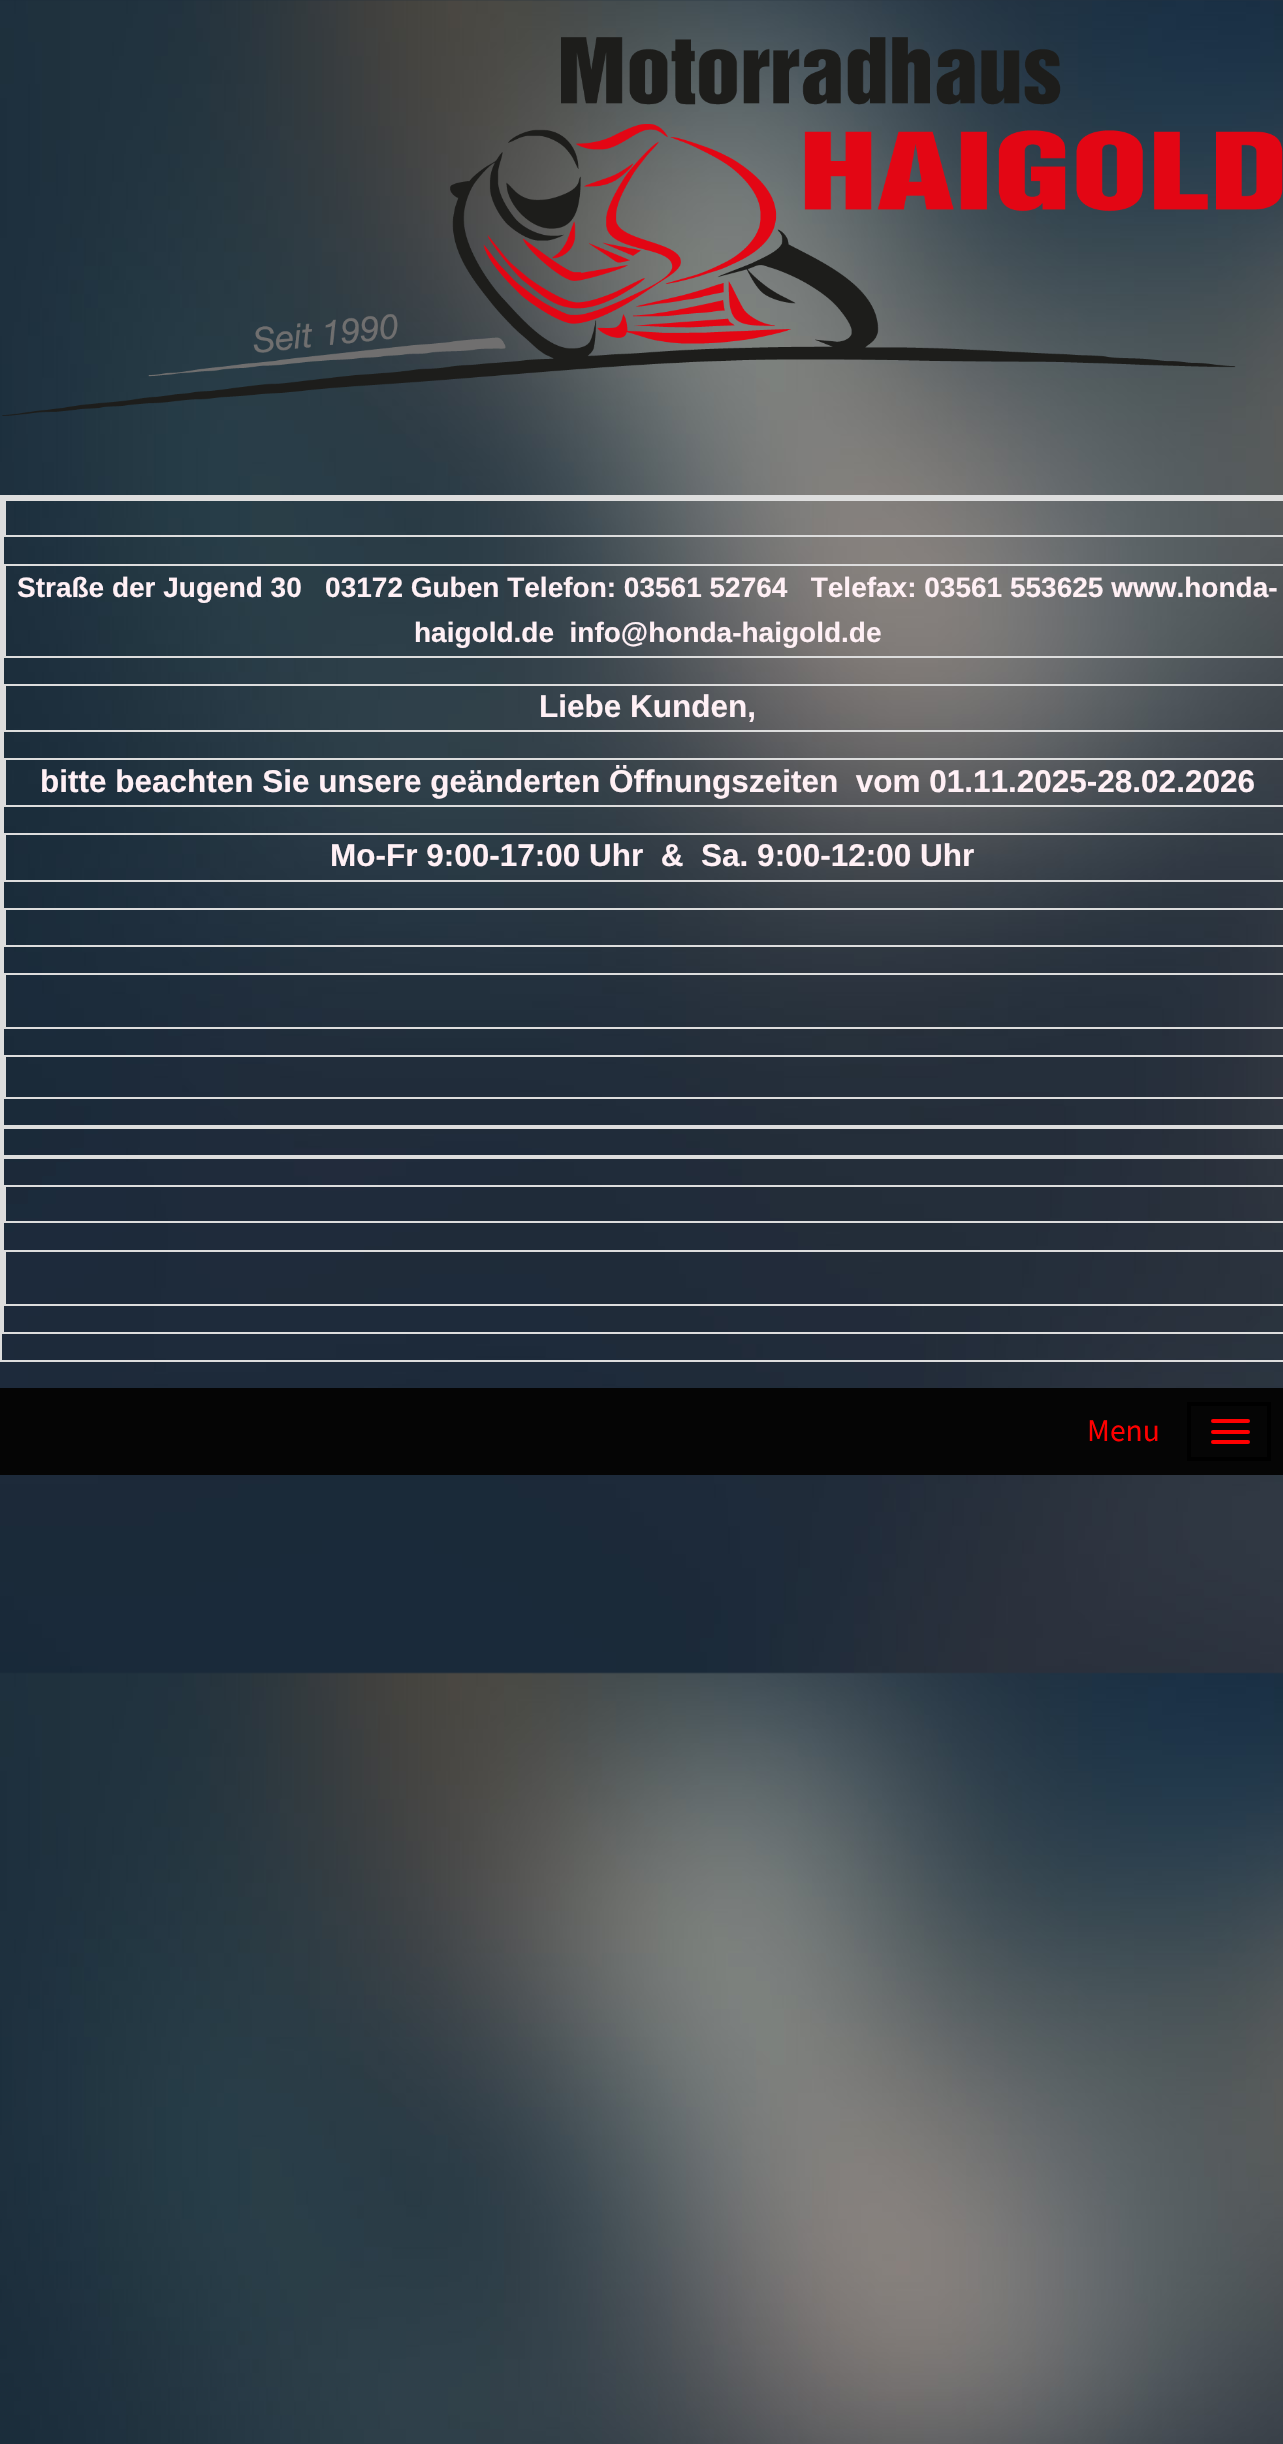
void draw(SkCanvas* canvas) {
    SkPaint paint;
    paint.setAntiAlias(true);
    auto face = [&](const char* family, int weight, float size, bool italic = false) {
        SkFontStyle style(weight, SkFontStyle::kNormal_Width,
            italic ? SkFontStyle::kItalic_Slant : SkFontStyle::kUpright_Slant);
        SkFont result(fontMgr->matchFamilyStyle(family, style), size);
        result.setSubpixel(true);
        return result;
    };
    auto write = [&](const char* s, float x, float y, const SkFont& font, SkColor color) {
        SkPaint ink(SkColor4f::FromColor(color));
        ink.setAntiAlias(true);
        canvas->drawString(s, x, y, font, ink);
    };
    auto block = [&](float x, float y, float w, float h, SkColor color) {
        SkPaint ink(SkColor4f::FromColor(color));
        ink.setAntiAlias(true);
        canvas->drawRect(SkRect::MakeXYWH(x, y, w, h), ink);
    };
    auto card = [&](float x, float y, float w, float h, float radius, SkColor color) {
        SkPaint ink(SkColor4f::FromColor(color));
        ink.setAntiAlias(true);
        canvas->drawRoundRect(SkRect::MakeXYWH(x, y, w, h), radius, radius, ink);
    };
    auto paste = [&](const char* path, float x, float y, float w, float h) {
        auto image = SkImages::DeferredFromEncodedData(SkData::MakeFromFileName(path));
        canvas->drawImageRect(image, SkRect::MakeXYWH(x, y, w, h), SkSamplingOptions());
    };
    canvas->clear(SK_ColorWHITE);
    paste("pic1.png", 0, 0, 1283, 2444);
    paste("pic2.png", 2, 37, 1281, 379);
    paint.setStyle(SkPaint::kStroke_Style);
    paint.setStrokeWidth(2);
    paint.setColor(SkColorSetRGB(221, 221, 221));
    canvas->drawRect(SkRect::MakeXYWH(1, 496, 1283, 865), paint);
    canvas->drawRect(SkRect::MakeXYWH(3, 498, 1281, 835), paint);
    canvas->drawRect(SkRect::MakeXYWH(5, 500, 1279, 36), paint);
    canvas->drawRect(SkRect::MakeXYWH(5, 565, 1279, 92), paint);
    auto kFont1 = face("Liberation Sans", 700, 28);
    write("Straße der Jugend 30   03172 Guben Telefon: 03561 52764   Telefax: 03561 553625 www.honda-", 17, 597, kFont1, SkColorSetRGB(255, 240, 245));
    write("haigold.de  info@honda-haigold.de", 414, 642, kFont1, SkColorSetRGB(255, 240, 245));
    canvas->drawRect(SkRect::MakeXYWH(5, 685, 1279, 46), paint);
    auto kFont2 = face("Liberation Sans", 700, 31.5f);
    write("Liebe Kunden,", 539, 717, kFont2, SkColorSetRGB(255, 240, 245));
    canvas->drawRect(SkRect::MakeXYWH(5, 759, 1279, 47), paint);
    write("bitte beachten Sie unsere geänderten Öffnungszeiten  vom 01.11.2025-28.02.2026", 40, 792, kFont2, SkColorSetRGB(255, 240, 245));
    canvas->drawRect(SkRect::MakeXYWH(5, 834, 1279, 47), paint);
    write("Mo-Fr 9:00-17:00 Uhr  &  Sa. 9:00-12:00 Uhr", 330, 866, kFont2, SkColorSetRGB(255, 240, 245));
    canvas->drawRect(SkRect::MakeXYWH(5, 909, 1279, 37), paint);
    canvas->drawRect(SkRect::MakeXYWH(5, 974, 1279, 54), paint);
    canvas->drawRect(SkRect::MakeXYWH(5, 1056, 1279, 42), paint);
    block(4, 1125, 1279, 4, SkColorSetRGB(221, 221, 221));
    block(4, 1155, 1279, 4, SkColorSetRGB(221, 221, 221));
    canvas->drawRect(SkRect::MakeXYWH(5, 1186, 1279, 36), paint);
    canvas->drawRect(SkRect::MakeXYWH(5, 1251, 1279, 54), paint);
    block(0, 1388, 1283, 87, SkColorSetRGB(5, 5, 5));
    auto kFont3 = face("Source Sans Pro", 400, 31.5f);
    write("Menu", 1087, 1441, kFont3, SkColorSetRGB(255, 0, 0));
    paint.setStrokeWidth(4);
    paint.setColor(SK_ColorBLACK);
    canvas->drawRect(SkRect::MakeXYWH(1189, 1404, 80, 55), paint);
    card(1211, 1419, 39, 4, 2, SkColorSetRGB(255, 0, 0));
    card(1211, 1430, 39, 4, 2, SkColorSetRGB(255, 0, 0));
    card(1211, 1440, 39, 4, 2, SkColorSetRGB(255, 0, 0));
}
